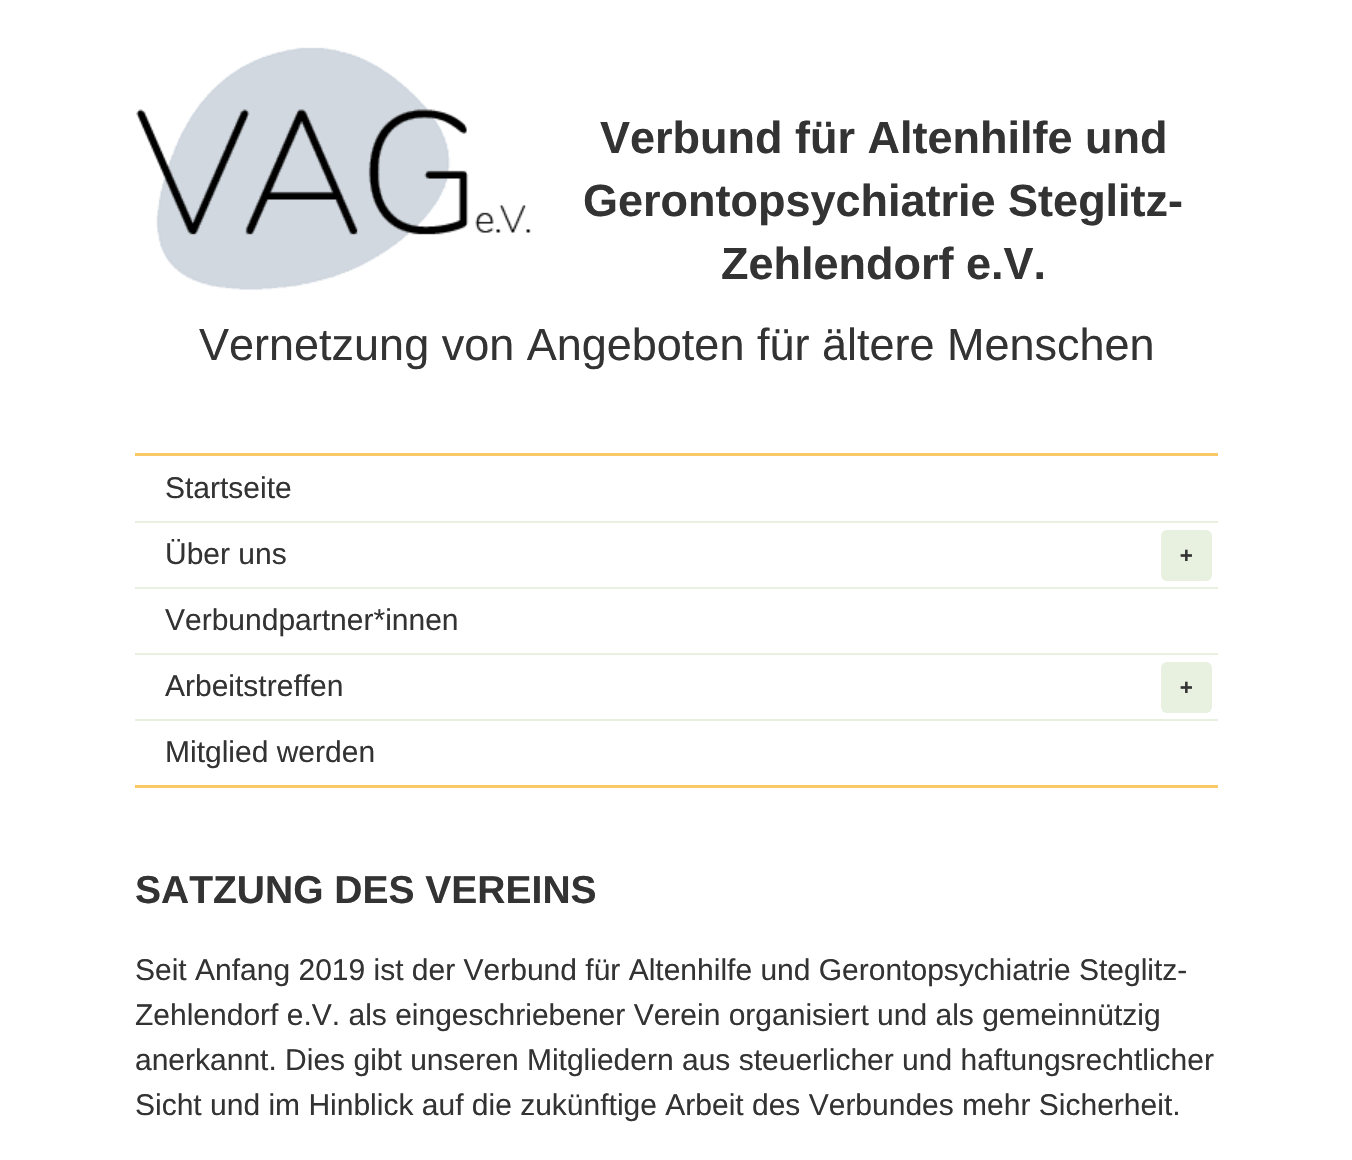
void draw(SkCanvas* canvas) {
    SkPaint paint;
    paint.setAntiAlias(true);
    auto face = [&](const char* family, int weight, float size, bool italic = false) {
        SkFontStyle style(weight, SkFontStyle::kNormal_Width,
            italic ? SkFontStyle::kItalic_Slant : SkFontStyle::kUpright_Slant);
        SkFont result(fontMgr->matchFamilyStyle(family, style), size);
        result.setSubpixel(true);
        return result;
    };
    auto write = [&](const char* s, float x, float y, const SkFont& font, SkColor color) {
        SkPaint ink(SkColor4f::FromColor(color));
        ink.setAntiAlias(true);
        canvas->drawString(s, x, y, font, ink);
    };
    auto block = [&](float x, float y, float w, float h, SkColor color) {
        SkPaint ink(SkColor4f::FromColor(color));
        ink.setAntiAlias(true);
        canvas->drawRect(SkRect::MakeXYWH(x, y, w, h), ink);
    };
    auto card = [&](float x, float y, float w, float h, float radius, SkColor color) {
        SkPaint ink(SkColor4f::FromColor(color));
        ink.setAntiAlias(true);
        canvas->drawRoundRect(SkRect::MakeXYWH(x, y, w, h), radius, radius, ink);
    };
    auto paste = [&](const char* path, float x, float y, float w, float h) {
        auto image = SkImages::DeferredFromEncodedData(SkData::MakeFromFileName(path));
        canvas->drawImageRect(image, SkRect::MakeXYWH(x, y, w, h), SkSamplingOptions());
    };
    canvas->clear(SK_ColorWHITE);
    paste("pic1.png", 136, 47, 396, 243);
    auto kFont1 = face("Liberation Sans", 700, 45);
    write("Verbund für Altenhilfe und", 600, 153, kFont1, SkColorSetRGB(51, 51, 51));
    write("Gerontopsychiatrie Steglitz-", 583, 216, kFont1, SkColorSetRGB(51, 51, 51));
    write("Zehlendorf e.V.", 721, 279, kFont1, SkColorSetRGB(51, 51, 51));
    auto kFont2 = face("Liberation Sans", 400, 45);
    write("Vernetzung von Angeboten für ältere Menschen", 199, 360, kFont2, SkColorSetRGB(51, 51, 51));
    block(135, 453, 1083, 3, SkColorSetRGB(251, 200, 102));
    block(135, 785, 1083, 3, SkColorSetRGB(251, 200, 102));
    auto kFont3 = face("Liberation Sans", 400, 30);
    write("Startseite", 165, 498, kFont3, SkColorSetRGB(51, 51, 51));
    block(135, 521, 1083, 2, SkColorSetRGB(232, 241, 224));
    write("Über uns", 165, 564, kFont3, SkColorSetRGB(51, 51, 51));
    card(1161, 530, 51, 51, 6, SkColorSetRGB(232, 241, 224));
    auto kFont4 = face("DejaVu Sans Mono", 700, 21);
    write("+", 1180, 562, kFont4, SkColorSetRGB(51, 51, 51));
    block(135, 587, 1083, 2, SkColorSetRGB(232, 241, 224));
    write("Verbundpartner*innen", 165, 630, kFont3, SkColorSetRGB(51, 51, 51));
    block(135, 653, 1083, 2, SkColorSetRGB(232, 241, 224));
    write("Arbeitstreffen", 165, 696, kFont3, SkColorSetRGB(51, 51, 51));
    card(1161, 662, 51, 51, 6, SkColorSetRGB(232, 241, 224));
    write("+", 1180, 694, kFont4, SkColorSetRGB(51, 51, 51));
    block(135, 719, 1083, 2, SkColorSetRGB(232, 241, 224));
    write("Mitglied werden", 165, 762, kFont3, SkColorSetRGB(51, 51, 51));
    auto kFont5 = face("Liberation Sans", 700, 39);
    write("SATZUNG DES VEREINS", 135, 903, kFont5, SkColorSetRGB(51, 51, 51));
    write("Seit Anfang 2019 ist der Verbund für Altenhilfe und Gerontopsychiatrie Steglitz-", 135, 980, kFont3, SkColorSetRGB(51, 51, 51));
    write("Zehlendorf e.V. als eingeschriebener Verein organisiert und als gemeinnützig", 135, 1025, kFont3, SkColorSetRGB(51, 51, 51));
    write("anerkannt. Dies gibt unseren Mitgliedern aus steuerlicher und haftungsrechtlicher", 135, 1070, kFont3, SkColorSetRGB(51, 51, 51));
    write("Sicht und im Hinblick auf die zukünftige Arbeit des Verbundes mehr Sicherheit.", 135, 1115, kFont3, SkColorSetRGB(51, 51, 51));
}
